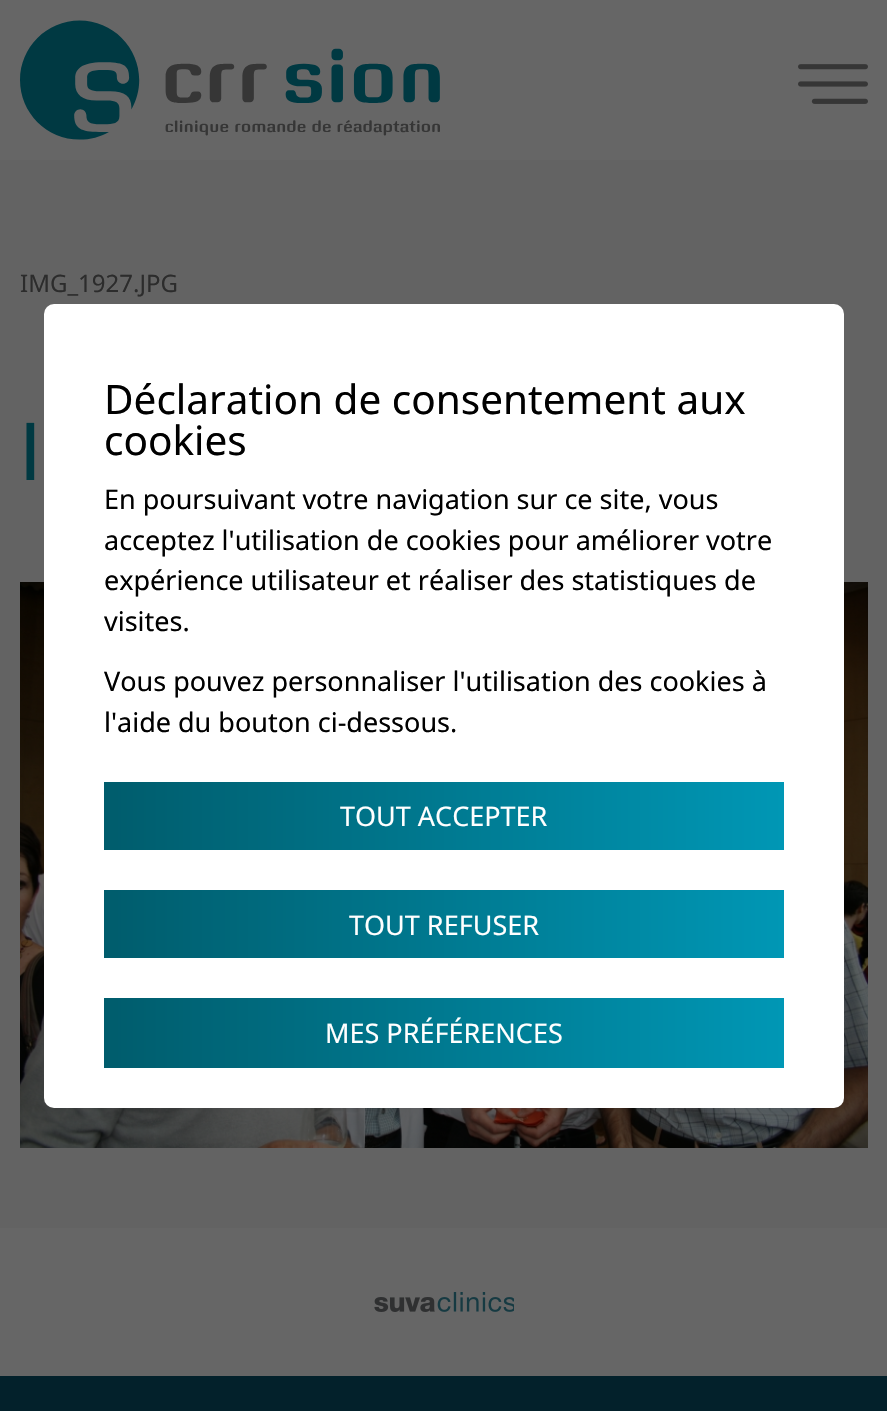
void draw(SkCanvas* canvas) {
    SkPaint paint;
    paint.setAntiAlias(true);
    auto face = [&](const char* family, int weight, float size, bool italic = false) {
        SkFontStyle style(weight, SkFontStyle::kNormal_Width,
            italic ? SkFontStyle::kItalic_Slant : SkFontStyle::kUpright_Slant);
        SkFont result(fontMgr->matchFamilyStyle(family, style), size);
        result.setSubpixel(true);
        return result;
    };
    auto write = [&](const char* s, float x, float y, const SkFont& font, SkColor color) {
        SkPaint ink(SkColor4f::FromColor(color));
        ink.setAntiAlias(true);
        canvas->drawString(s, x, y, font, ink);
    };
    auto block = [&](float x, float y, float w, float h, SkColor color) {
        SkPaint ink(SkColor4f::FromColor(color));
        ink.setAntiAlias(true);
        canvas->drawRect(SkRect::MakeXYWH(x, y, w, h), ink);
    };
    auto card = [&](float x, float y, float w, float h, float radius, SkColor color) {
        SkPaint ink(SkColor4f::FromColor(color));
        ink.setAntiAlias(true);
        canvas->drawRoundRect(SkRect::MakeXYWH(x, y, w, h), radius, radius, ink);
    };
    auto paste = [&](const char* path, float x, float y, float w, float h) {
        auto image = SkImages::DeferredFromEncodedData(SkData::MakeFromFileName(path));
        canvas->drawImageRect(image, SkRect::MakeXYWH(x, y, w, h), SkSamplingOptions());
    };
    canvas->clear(SkColorSetRGB(99, 99, 99));
    block(0, 0, 887, 160, SkColorSetRGB(102, 102, 102));
    paste("pic1.png", 20, 20, 420, 120);
    paste("pic2.png", 798, 64, 70, 40);
    auto kFont1 = face("Noto Sans", 400, 24);
    write("IMG_1927.JPG", 20, 292, kFont1, SkColorSetRGB(44, 44, 44));
    auto kFont2 = face("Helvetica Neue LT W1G", 400, 80);
    write("I", 20, 480, kFont2, SkColorSetRGB(0, 57, 66));
    paste("pic3.png", 20, 582, 848, 566);
    card(44, 304, 800, 804, 10, SK_ColorWHITE);
    auto kFont3 = face("Noto Sans", 400, 40.5f);
    write("Déclaration de consentement aux", 104, 414, kFont3, SK_ColorBLACK);
    write("cookies", 104, 455, kFont3, SK_ColorBLACK);
    auto kFont4 = face("Noto Sans", 400, 27);
    write("En poursuivant votre navigation sur ce site, vous", 104, 509, kFont4, SK_ColorBLACK);
    write("acceptez l'utilisation de cookies pour améliorer votre", 104, 550, kFont4, SK_ColorBLACK);
    write("expérience utilisateur et réaliser des statistiques de", 104, 590, kFont4, SK_ColorBLACK);
    write("visites.", 104, 631, kFont4, SK_ColorBLACK);
    write("Vous pouvez personnaliser l'utilisation des cookies à", 104, 691, kFont4, SK_ColorBLACK);
    write("l'aide du bouton ci-dessous.", 104, 732, kFont4, SK_ColorBLACK);
    {
        const SkColor colors[] = {SkColorSetRGB(0, 92, 108), SkColorSetRGB(0, 151, 181)};
        const float stops[] = {0, 1};
        const SkPoint ends[] = {{104, 816}, {784, 816}};
        paint.setShader(SkGradientShader::MakeLinear(ends, colors, stops, 2, SkTileMode::kClamp));
        paint.setAlpha(255);
    }
    canvas->drawRect(SkRect::MakeXYWH(104, 782, 680, 68), paint);
    write("TOUT ACCEPTER", 340, 826, kFont4, SK_ColorWHITE);
    {
        const SkColor colors[] = {SkColorSetRGB(0, 92, 108), SkColorSetRGB(0, 151, 181)};
        const float stops[] = {0, 1};
        const SkPoint ends[] = {{104, 924}, {784, 924}};
        paint.setShader(SkGradientShader::MakeLinear(ends, colors, stops, 2, SkTileMode::kClamp));
        paint.setAlpha(255);
    }
    canvas->drawRect(SkRect::MakeXYWH(104, 890, 680, 68), paint);
    write("TOUT REFUSER", 349, 935, kFont4, SK_ColorWHITE);
    {
        const SkColor colors[] = {SkColorSetRGB(0, 92, 108), SkColorSetRGB(0, 151, 181)};
        const float stops[] = {0, 1};
        const SkPoint ends[] = {{104, 1033}, {784, 1033}};
        paint.setShader(SkGradientShader::MakeLinear(ends, colors, stops, 2, SkTileMode::kClamp));
        paint.setAlpha(255);
    }
    canvas->drawRect(SkRect::MakeXYWH(104, 998, 680, 70), paint);
    write("MES PRÉFÉRENCES", 325, 1043, kFont4, SK_ColorWHITE);
    block(0, 1228, 887, 148, SkColorSetRGB(102, 102, 102));
    paste("pic4.png", 374, 1292, 140, 20);
    block(0, 1376, 887, 35, SkColorSetRGB(3, 33, 43));
}
